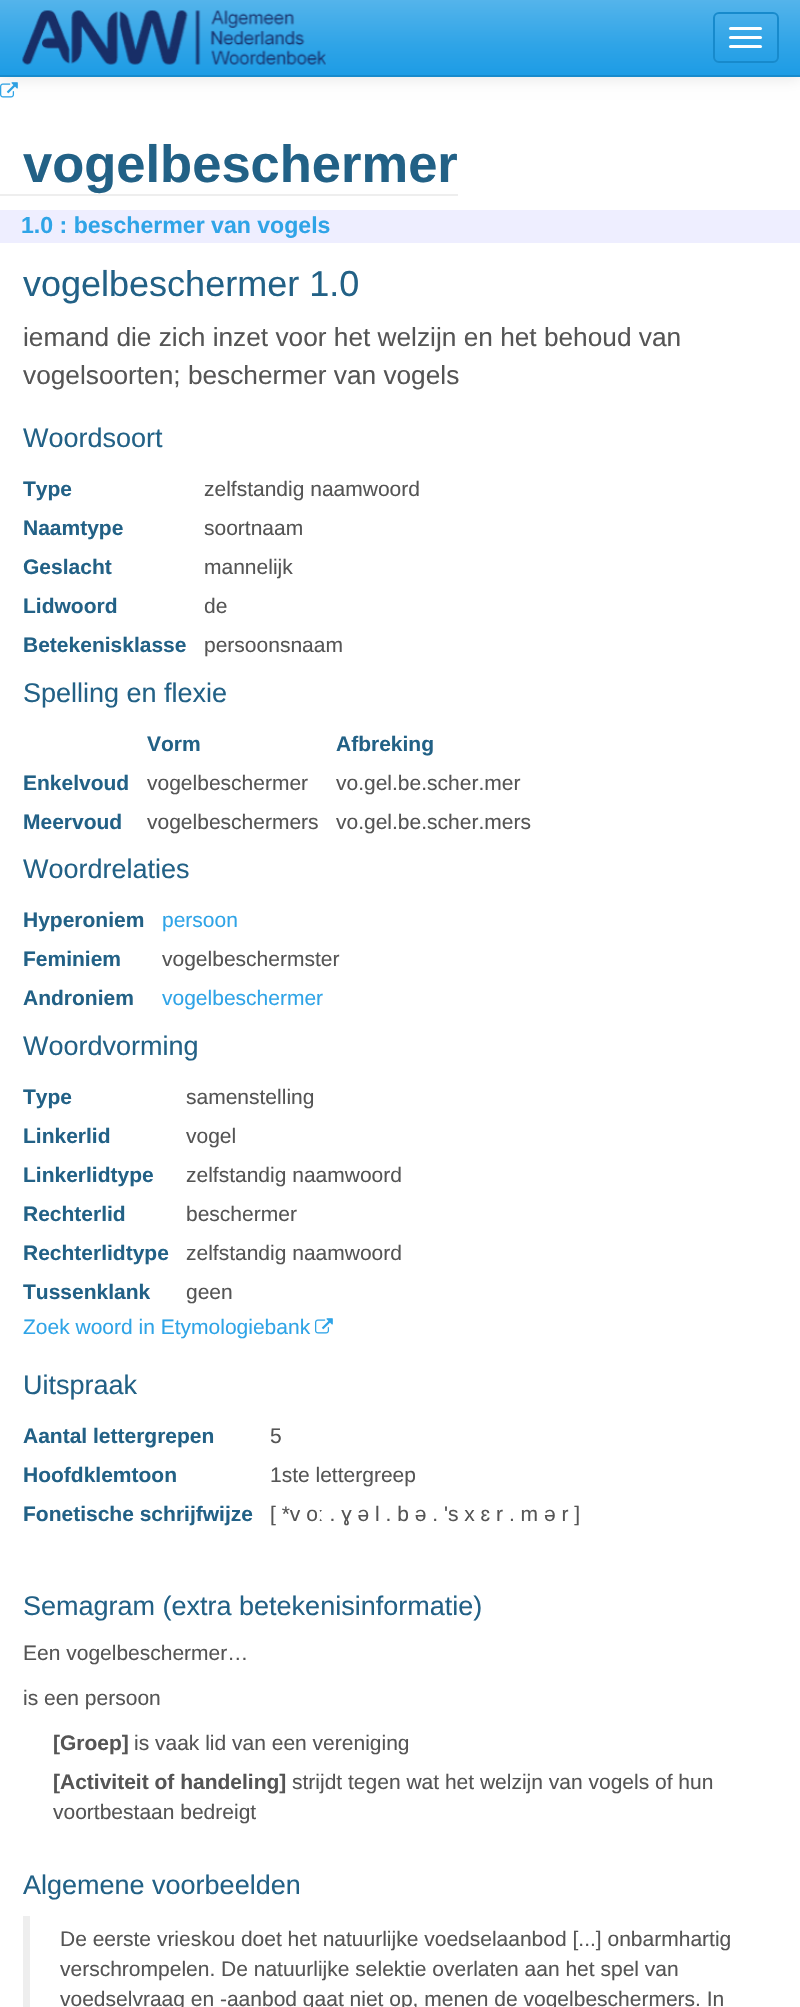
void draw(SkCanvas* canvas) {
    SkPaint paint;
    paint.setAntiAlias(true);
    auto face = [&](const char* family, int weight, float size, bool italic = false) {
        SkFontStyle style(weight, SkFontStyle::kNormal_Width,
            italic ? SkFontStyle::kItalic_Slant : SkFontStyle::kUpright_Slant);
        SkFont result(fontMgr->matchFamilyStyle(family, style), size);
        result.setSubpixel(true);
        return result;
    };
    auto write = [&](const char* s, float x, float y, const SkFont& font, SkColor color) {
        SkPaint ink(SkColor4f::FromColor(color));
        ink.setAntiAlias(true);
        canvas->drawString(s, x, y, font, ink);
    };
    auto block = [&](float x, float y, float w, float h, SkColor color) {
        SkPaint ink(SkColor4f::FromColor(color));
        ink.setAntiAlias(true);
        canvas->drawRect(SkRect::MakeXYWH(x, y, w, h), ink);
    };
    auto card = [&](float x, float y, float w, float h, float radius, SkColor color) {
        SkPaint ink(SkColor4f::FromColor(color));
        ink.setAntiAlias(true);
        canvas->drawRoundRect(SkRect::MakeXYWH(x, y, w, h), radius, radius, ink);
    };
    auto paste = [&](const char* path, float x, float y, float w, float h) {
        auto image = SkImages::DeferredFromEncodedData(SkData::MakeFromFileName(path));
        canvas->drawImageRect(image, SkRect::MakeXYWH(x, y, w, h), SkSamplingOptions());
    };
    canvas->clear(SK_ColorWHITE);
    paste("pic2.png", 0, 82, 18, 16);
    paint.setColor(SkColorSetARGB(26, 0, 0, 0));
    paint.setMaskFilter(SkMaskFilter::MakeBlur(kNormal_SkBlurStyle, 7.5f));
    canvas->drawRect(SkRect::MakeXYWH(0, 2, 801, 76), paint);
    paint.setMaskFilter(nullptr);
    {
        const SkColor colors[] = {SkColorSetRGB(84, 180, 235), SkColorSetRGB(47, 164, 231), SkColorSetRGB(29, 156, 229)};
        const float stops[] = {0, 0.6f, 1};
        const SkPoint ends[] = {{401, 0}, {401, 75}};
        paint.setShader(SkGradientShader::MakeLinear(ends, colors, stops, 3, SkTileMode::kClamp));
        paint.setAlpha(255);
    }
    canvas->drawRect(SkRect::MakeXYWH(0, 0, 800, 75), paint);
    block(0, 75, 800, 2, SkColorSetRGB(23, 138, 204));
    paste("pic1.png", 22, 10, 304, 55);
    paint.setStyle(SkPaint::kStroke_Style);
    paint.setStrokeWidth(2);
    paint.setShader(nullptr);
    paint.setColor(SkColorSetRGB(23, 138, 204));
    canvas->drawRoundRect(SkRect::MakeXYWH(714, 13, 64, 49), 5, 5, paint);
    card(729, 27, 33, 3, 1.5f, SK_ColorWHITE);
    card(729, 36, 33, 3, 1.5f, SK_ColorWHITE);
    card(729, 45, 33, 3, 1.5f, SK_ColorWHITE);
    block(0, 194, 458, 2, SkColorSetRGB(238, 238, 238));
    auto kFont1 = face("Liberation Sans", 700, 52.5f);
    write("vogelbeschermer", 23, 182, kFont1, SkColorSetRGB(34, 97, 134));
    block(0, 210, 800, 33, SkColorSetRGB(238, 238, 255));
    auto kFont2 = face("Liberation Sans", 700, 23.1f);
    write("1.0 : beschermer van vogels", 21, 233, kFont2, SkColorSetRGB(47, 164, 231));
    auto kFont3 = face("Liberation Sans", 400, 36);
    write("vogelbeschermer 1.0", 23, 296, kFont3, SkColorSetRGB(34, 97, 134));
    auto kFont4 = face("Liberation Sans", 400, 26.25f);
    write("iemand die zich inzet voor het welzijn en het behoud van", 23, 346, kFont4, SkColorSetRGB(85, 85, 85));
    write("vogelsoorten; beschermer van vogels", 23, 384, kFont4, SkColorSetRGB(85, 85, 85));
    auto kFont5 = face("Liberation Sans", 400, 27);
    write("Woordsoort", 23, 447, kFont5, SkColorSetRGB(34, 97, 134));
    auto kFont6 = face("Liberation Sans", 700, 21);
    write("Type", 23, 496, kFont6, SkColorSetRGB(34, 97, 134));
    auto kFont7 = face("Liberation Sans", 400, 21);
    write("zelfstandig naamwoord", 204, 496, kFont7, SkColorSetRGB(85, 85, 85));
    write("Naamtype", 23, 535, kFont6, SkColorSetRGB(34, 97, 134));
    write("soortnaam", 204, 535, kFont7, SkColorSetRGB(85, 85, 85));
    write("Geslacht", 23, 574, kFont6, SkColorSetRGB(34, 97, 134));
    write("mannelijk", 204, 574, kFont7, SkColorSetRGB(85, 85, 85));
    write("Lidwoord", 23, 613, kFont6, SkColorSetRGB(34, 97, 134));
    write("de", 204, 613, kFont7, SkColorSetRGB(85, 85, 85));
    write("Betekenisklasse", 23, 652, kFont6, SkColorSetRGB(34, 97, 134));
    write("persoonsnaam", 204, 652, kFont7, SkColorSetRGB(85, 85, 85));
    write("Spelling en flexie", 23, 702, kFont5, SkColorSetRGB(34, 97, 134));
    write("Vorm", 147, 751, kFont6, SkColorSetRGB(34, 97, 134));
    write("Afbreking", 336, 751, kFont6, SkColorSetRGB(34, 97, 134));
    write("Enkelvoud", 23, 790, kFont6, SkColorSetRGB(34, 97, 134));
    write("vogelbeschermer", 147, 790, kFont7, SkColorSetRGB(85, 85, 85));
    write("vo.gel.be.scher.mer", 336, 790, kFont7, SkColorSetRGB(85, 85, 85));
    write("Meervoud", 23, 829, kFont6, SkColorSetRGB(34, 97, 134));
    write("vogelbeschermers", 147, 829, kFont7, SkColorSetRGB(85, 85, 85));
    write("vo.gel.be.scher.mers", 336, 829, kFont7, SkColorSetRGB(85, 85, 85));
    write("Woordrelaties", 23, 878, kFont5, SkColorSetRGB(34, 97, 134));
    write("Hyperoniem", 23, 927, kFont6, SkColorSetRGB(34, 97, 134));
    write("persoon", 162, 927, kFont7, SkColorSetRGB(47, 164, 231));
    write("Feminiem", 23, 966, kFont6, SkColorSetRGB(34, 97, 134));
    write("vogelbeschermster", 162, 966, kFont7, SkColorSetRGB(85, 85, 85));
    write("Androniem", 23, 1005, kFont6, SkColorSetRGB(34, 97, 134));
    write("vogelbeschermer", 162, 1005, kFont7, SkColorSetRGB(47, 164, 231));
    write("Woordvorming", 23, 1055, kFont5, SkColorSetRGB(34, 97, 134));
    write("Type", 23, 1104, kFont6, SkColorSetRGB(34, 97, 134));
    write("samenstelling", 186, 1104, kFont7, SkColorSetRGB(85, 85, 85));
    write("Linkerlid", 23, 1143, kFont6, SkColorSetRGB(34, 97, 134));
    write("vogel", 186, 1143, kFont7, SkColorSetRGB(85, 85, 85));
    write("Linkerlidtype", 23, 1182, kFont6, SkColorSetRGB(34, 97, 134));
    write("zelfstandig naamwoord", 186, 1182, kFont7, SkColorSetRGB(85, 85, 85));
    write("Rechterlid", 23, 1221, kFont6, SkColorSetRGB(34, 97, 134));
    write("beschermer", 186, 1221, kFont7, SkColorSetRGB(85, 85, 85));
    write("Rechterlidtype", 23, 1260, kFont6, SkColorSetRGB(34, 97, 134));
    write("zelfstandig naamwoord", 186, 1260, kFont7, SkColorSetRGB(85, 85, 85));
    write("Tussenklank", 23, 1299, kFont6, SkColorSetRGB(34, 97, 134));
    write("geen", 186, 1299, kFont7, SkColorSetRGB(85, 85, 85));
    write("Zoek woord in Etymologiebank", 23, 1334, kFont7, SkColorSetRGB(47, 164, 231));
    paste("pic2.png", 315, 1318, 18, 16);
    write("Uitspraak", 23, 1394, kFont5, SkColorSetRGB(34, 97, 134));
    write("Aantal lettergrepen", 23, 1443, kFont6, SkColorSetRGB(34, 97, 134));
    write("5", 270, 1443, kFont7, SkColorSetRGB(85, 85, 85));
    write("Hoofdklemtoon", 23, 1482, kFont6, SkColorSetRGB(34, 97, 134));
    write("1ste lettergreep", 270, 1482, kFont7, SkColorSetRGB(85, 85, 85));
    write("Fonetische schrijfwijze", 23, 1521, kFont6, SkColorSetRGB(34, 97, 134));
    write("[ *v oː . ɣ ə l . b ə . 's x ɛ r . m ə r ]", 270, 1521, kFont7, SkColorSetRGB(85, 85, 85));
    write("Semagram (extra betekenisinformatie)", 23, 1615, kFont5, SkColorSetRGB(34, 97, 134));
    write("Een vogelbeschermer…", 23, 1660, kFont7, SkColorSetRGB(85, 85, 85));
    write("is een persoon", 23, 1705, kFont7, SkColorSetRGB(85, 85, 85));
    write("[Groep]", 53, 1750, kFont6, SkColorSetRGB(85, 85, 85));
    write("is vaak lid van een vereniging", 134, 1750, kFont7, SkColorSetRGB(85, 85, 85));
    write("[Activiteit of handeling]", 53, 1789, kFont6, SkColorSetRGB(85, 85, 85));
    write("strijdt tegen wat het welzijn van vogels of hun", 292, 1789, kFont7, SkColorSetRGB(85, 85, 85));
    write("voortbestaan bedreigt", 53, 1819, kFont7, SkColorSetRGB(85, 85, 85));
    write("Algemene voorbeelden", 23, 1894, kFont5, SkColorSetRGB(34, 97, 134));
    block(23, 1916, 7, 91, SkColorSetRGB(238, 238, 238));
    write("De eerste vrieskou doet het natuurlijke voedselaanbod [...] onbarmhartig", 60, 1946, kFont7, SkColorSetRGB(85, 85, 85));
    write("verschrompelen. De natuurlijke selektie overlaten aan het spel van", 60, 1976, kFont7, SkColorSetRGB(85, 85, 85));
    write("voedselvraag en -aanbod gaat niet op, menen de vogelbeschermers. In", 60, 2006, kFont7, SkColorSetRGB(85, 85, 85));
}
